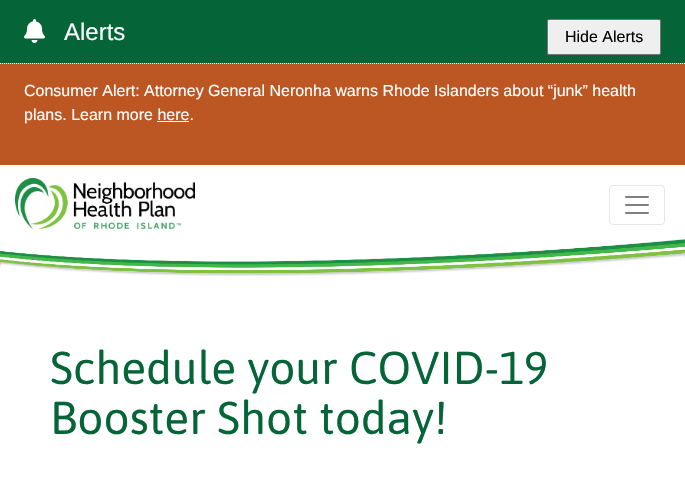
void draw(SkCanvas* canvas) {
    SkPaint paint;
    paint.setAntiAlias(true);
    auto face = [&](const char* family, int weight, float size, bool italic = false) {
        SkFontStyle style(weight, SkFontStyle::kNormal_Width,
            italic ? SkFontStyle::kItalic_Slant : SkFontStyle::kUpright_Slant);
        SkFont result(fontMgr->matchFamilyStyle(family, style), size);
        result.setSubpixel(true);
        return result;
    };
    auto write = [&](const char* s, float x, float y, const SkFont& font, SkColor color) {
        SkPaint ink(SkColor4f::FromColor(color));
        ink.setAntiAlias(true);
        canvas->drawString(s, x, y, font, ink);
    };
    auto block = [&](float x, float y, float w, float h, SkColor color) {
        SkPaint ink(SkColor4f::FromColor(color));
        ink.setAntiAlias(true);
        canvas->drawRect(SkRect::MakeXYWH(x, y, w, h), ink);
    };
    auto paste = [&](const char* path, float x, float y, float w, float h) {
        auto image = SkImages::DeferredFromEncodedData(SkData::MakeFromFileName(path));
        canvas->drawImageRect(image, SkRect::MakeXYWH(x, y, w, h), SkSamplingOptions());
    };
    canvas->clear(SK_ColorWHITE);
    block(0, 0, 685, 63, SkColorSetRGB(5, 101, 56));
    paste("pic1.png", 24, 19, 21, 24);
    auto kFont1 = face("Liberation Sans", 400, 24);
    write("Alerts", 64, 40, kFont1, SK_ColorWHITE);
    paint.setColor(SkColorSetRGB(239, 239, 239));
    canvas->drawRoundRect(SkRect::MakeXYWH(547.5f, 19.5f, 113, 35), 1.5f, 1.5f, paint);
    paint.setStyle(SkPaint::kStroke_Style);
    paint.setStrokeWidth(1);
    paint.setColor(SkColorSetRGB(118, 118, 118));
    canvas->drawRoundRect(SkRect::MakeXYWH(547.5f, 19.5f, 113, 35), 1.5f, 1.5f, paint);
    auto kFont2 = face("Liberation Sans", 400, 16);
    write("Hide Alerts", 565, 42, kFont2, SK_ColorBLACK);
    block(0, 63, 685, 102, SkColorSetRGB(188, 87, 36));
    paint.setColor(SK_ColorWHITE);
    paint.setPathEffect(SkDashPathEffect::Make({{1, 1}}, 0));
    canvas->drawPath(SkPathBuilder().moveTo(0, 63.5f).lineTo(685, 63.5f).detach(), paint);
    paint.setPathEffect(nullptr);
    write("Consumer Alert: Attorney General Neronha warns Rhode Islanders about “junk” health", 24, 96, kFont2, SK_ColorWHITE);
    write("plans. Learn more here.", 24, 120, kFont2, SK_ColorWHITE);
    block(157, 121, 32, 1, SK_ColorWHITE);
    paste("pic2.png", 15, 178, 180, 51);
    paint.setColor(SkColorSetRGB(230, 230, 230));
    canvas->drawRoundRect(SkRect::MakeXYWH(609.5f, 185.5f, 55, 39), 3.5f, 3.5f, paint);
    paste("pic3.png", 625, 196, 24, 18);
    paste("pic4.png", 0, 239, 685, 37);
    auto kFont3 = face("Asap", 400, 46);
    write("Schedule your COVID-19", 50, 384, kFont3, SkColorSetRGB(5, 101, 56));
    write("Booster Shot today!", 50, 434, kFont3, SkColorSetRGB(5, 101, 56));
}
